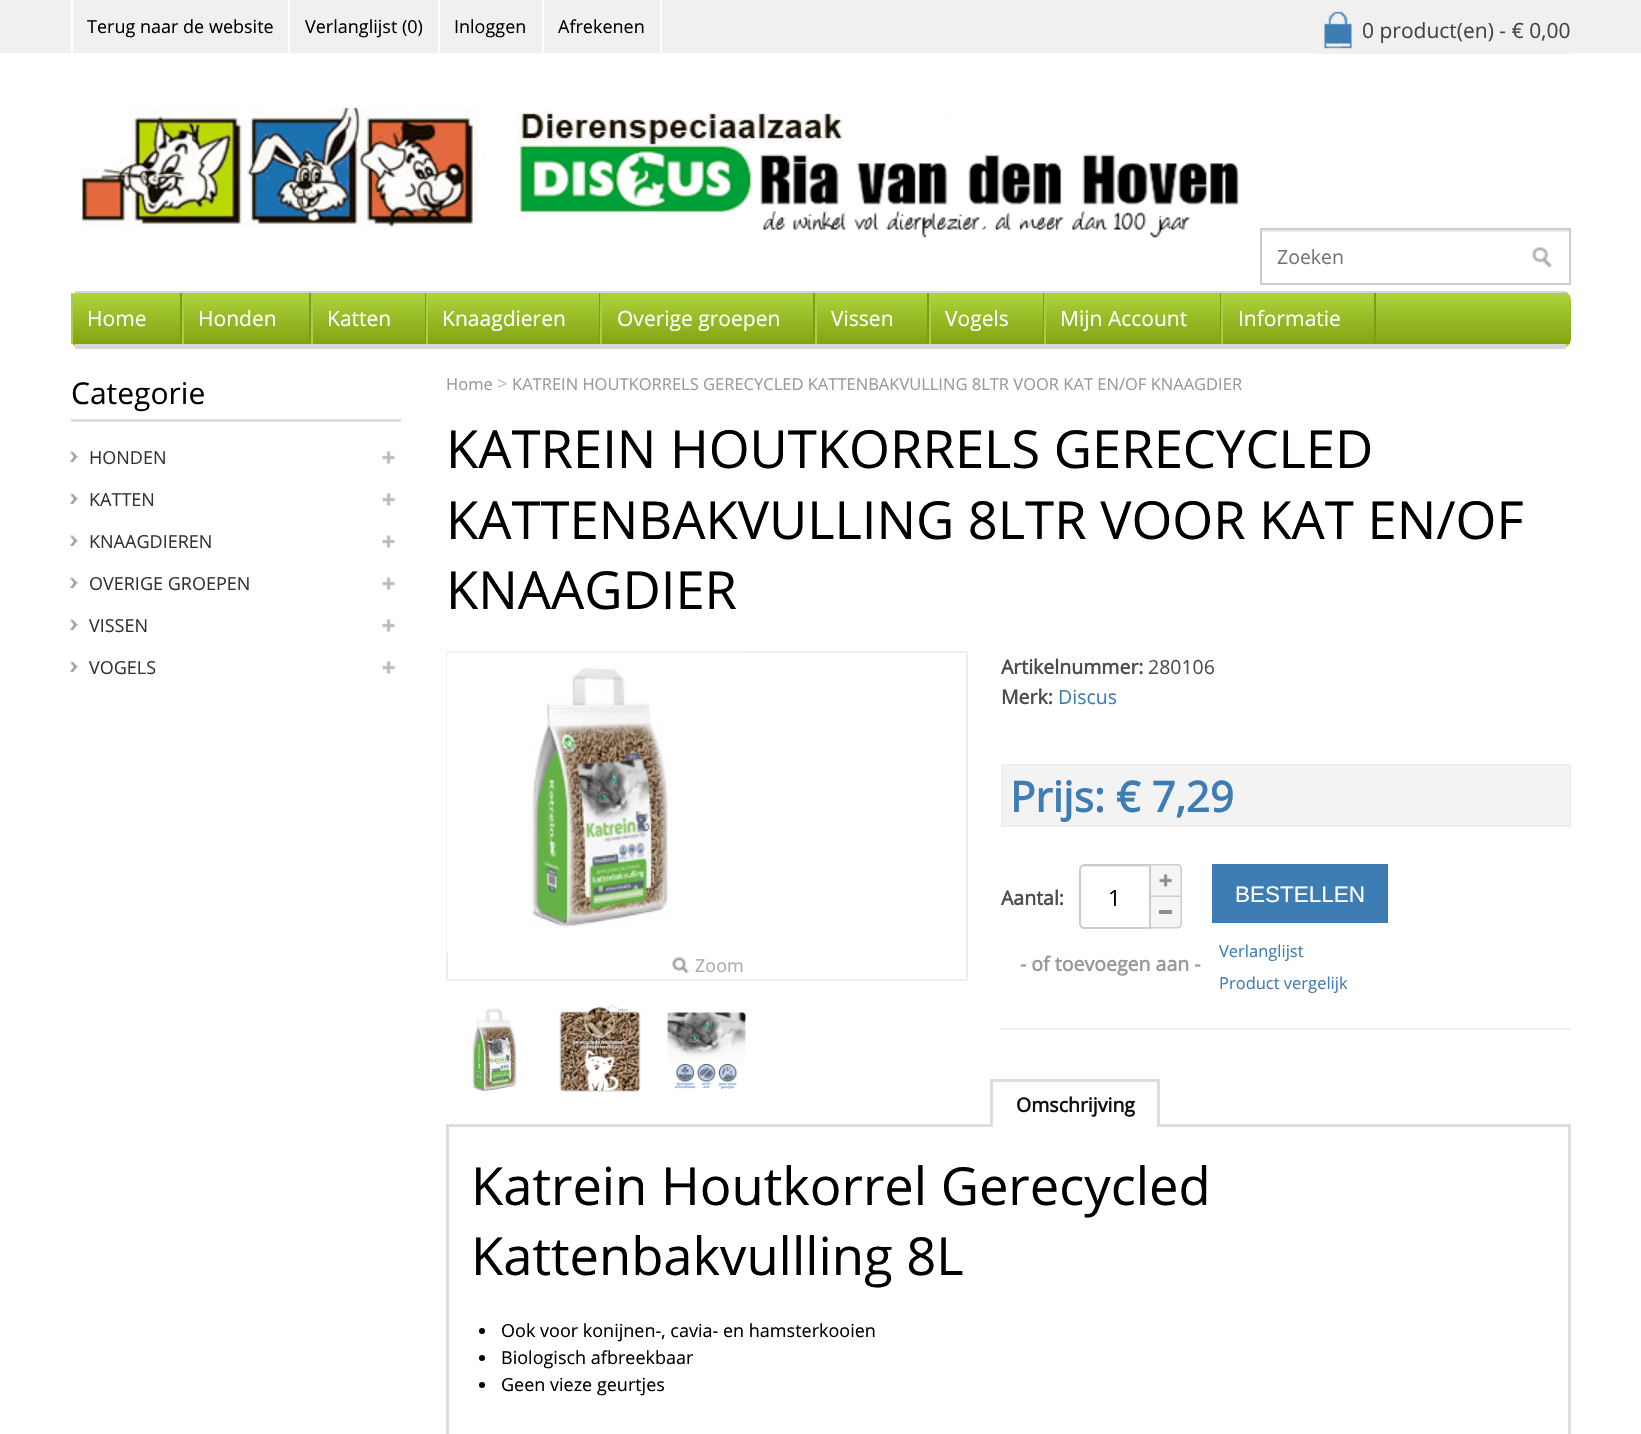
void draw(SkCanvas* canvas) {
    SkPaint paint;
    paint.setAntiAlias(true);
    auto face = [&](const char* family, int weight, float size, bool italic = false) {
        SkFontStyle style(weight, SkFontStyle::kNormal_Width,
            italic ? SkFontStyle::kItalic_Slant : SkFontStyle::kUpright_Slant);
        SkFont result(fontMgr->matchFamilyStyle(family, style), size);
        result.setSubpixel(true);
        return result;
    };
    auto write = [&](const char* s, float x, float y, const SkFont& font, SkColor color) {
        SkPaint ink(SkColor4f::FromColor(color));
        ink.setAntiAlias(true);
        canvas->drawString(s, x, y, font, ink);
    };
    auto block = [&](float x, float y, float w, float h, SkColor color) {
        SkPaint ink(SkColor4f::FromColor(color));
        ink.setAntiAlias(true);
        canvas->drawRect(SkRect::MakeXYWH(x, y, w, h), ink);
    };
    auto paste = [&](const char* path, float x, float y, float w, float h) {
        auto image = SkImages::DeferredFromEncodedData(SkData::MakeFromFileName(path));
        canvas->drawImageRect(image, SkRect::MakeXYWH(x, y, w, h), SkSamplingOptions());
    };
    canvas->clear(SK_ColorWHITE);
    block(0, 0, 1641, 53, SkColorSetRGB(240, 240, 240));
    block(660, 0, 2, 53, SK_ColorWHITE);
    block(71, 0, 2, 53, SK_ColorWHITE);
    auto kFont1 = face("Open Sans", 400, 18);
    write("Terug naar de website", 87, 33, kFont1, SK_ColorBLACK);
    block(288, 0, 2, 53, SK_ColorWHITE);
    write("Verlanglijst (0)", 305, 33, kFont1, SK_ColorBLACK);
    block(438, 0, 2, 53, SK_ColorWHITE);
    write("Inloggen", 454, 33, kFont1, SK_ColorBLACK);
    block(542, 0, 2, 53, SK_ColorWHITE);
    write("Afrekenen", 558, 33, kFont1, SK_ColorBLACK);
    block(1362, 53, 209, 1, SkColorSetRGB(240, 240, 240));
    block(1324, 11, 28, 38, SkColorSetRGB(62, 124, 180));
    paste("pic1.png", 1314, 6, 48, 48);
    auto kFont2 = face("Open Sans", 400, 21);
    write("0 product(en) - € 0,00", 1362, 38, kFont2, SkColorSetRGB(68, 68, 68));
    paste("pic2.png", 81, 107, 1159, 131);
    block(1262, 230, 307, 2, SkColorSetRGB(236, 236, 236));
    paint.setStyle(SkPaint::kStroke_Style);
    paint.setStrokeWidth(2);
    paint.setColor(SkColorSetRGB(204, 204, 204));
    canvas->drawRect(SkRect::MakeXYWH(1261, 229, 309, 55), paint);
    auto kFont3 = face("Open Sans", 400, 19.5f);
    write("Zoeken", 1277, 264, kFont3, SkColorSetRGB(117, 117, 117));
    paste("pic3.png", 1531, 247, 21, 21);
    canvas->save();
    canvas->clipPath(SkPathBuilder().moveTo(80, 291).lineTo(1562, 291).cubicTo(1567, 291, 1571, 295, 1571, 300).lineTo(1571, 339).cubicTo(1571, 344, 1567, 348, 1562, 348).lineTo(80, 348).cubicTo(75, 348, 71, 344, 71, 339).lineTo(71, 300).cubicTo(71, 295, 75, 291, 80, 291).close().detach(), true);
    paint.setStyle(SkPaint::kFill_Style);
    {
        const SkColor colors[] = {SkColorSetRGB(173, 212, 61), SkColorSetRGB(130, 164, 17)};
        const float stops[] = {0, 1};
        const SkPoint ends[] = {{821, 241}, {821, 293}};
        paint.setShader(SkGradientShader::MakeLinear(ends, colors, stops, 2, SkTileMode::kClamp));
        paint.setAlpha(255);
    }
    canvas->drawRect(SkRect::MakeXYWH(71, 292, 1500, 1), paint);
    {
        const SkColor colors[] = {SkColorSetRGB(173, 212, 61), SkColorSetRGB(130, 164, 17)};
        const float stops[] = {0, 1};
        const SkPoint ends[] = {{821, 292}, {821, 344}};
        paint.setShader(SkGradientShader::MakeLinear(ends, colors, stops, 2, SkTileMode::kClamp));
        paint.setAlpha(255);
    }
    canvas->drawRect(SkRect::MakeXYWH(73, 293, 1498, 51), paint);
    {
        const SkColor colors[] = {SkColorSetRGB(173, 212, 61), SkColorSetRGB(130, 164, 17)};
        const float stops[] = {0, 1};
        const SkPoint ends[] = {{821, 343}, {821, 395}};
        paint.setShader(SkGradientShader::MakeLinear(ends, colors, stops, 2, SkTileMode::kClamp));
        paint.setAlpha(255);
    }
    canvas->drawRect(SkRect::MakeXYWH(71, 344, 1500, 3), paint);
    canvas->restore();
    block(75, 291, 1491, 2, SkColorSetRGB(214, 214, 214));
    block(75, 344, 1491, 5, SkColorSetRGB(214, 214, 214));
    block(180, 293, 2, 51, SkColorSetRGB(125, 156, 26));
    block(71, 293, 2, 51, SkColorSetRGB(171, 204, 69));
    write("Home", 87, 326, kFont2, SK_ColorWHITE);
    block(309, 293, 2, 51, SkColorSetRGB(125, 156, 26));
    block(182, 293, 2, 51, SkColorSetRGB(171, 204, 69));
    write("Honden", 198, 326, kFont2, SK_ColorWHITE);
    block(425, 293, 1, 51, SkColorSetRGB(125, 156, 26));
    block(311, 293, 2, 51, SkColorSetRGB(171, 204, 69));
    write("Katten", 327, 326, kFont2, SK_ColorWHITE);
    block(599, 293, 1, 51, SkColorSetRGB(125, 156, 26));
    block(426, 293, 2, 51, SkColorSetRGB(171, 204, 69));
    write("Knaagdieren", 442, 326, kFont2, SK_ColorWHITE);
    block(813, 293, 2, 51, SkColorSetRGB(125, 156, 26));
    block(600, 293, 2, 51, SkColorSetRGB(171, 204, 69));
    write("Overige groepen", 617, 326, kFont2, SK_ColorWHITE);
    block(927, 293, 2, 51, SkColorSetRGB(125, 156, 26));
    block(815, 293, 2, 51, SkColorSetRGB(171, 204, 69));
    write("Vissen", 831, 326, kFont2, SK_ColorWHITE);
    block(1043, 293, 1, 51, SkColorSetRGB(125, 156, 26));
    block(929, 293, 2, 51, SkColorSetRGB(171, 204, 69));
    write("Vogels", 945, 326, kFont2, SK_ColorWHITE);
    block(1220, 293, 1, 51, SkColorSetRGB(125, 156, 26));
    block(1044, 293, 2, 51, SkColorSetRGB(171, 204, 69));
    write("Mijn Account", 1060, 326, kFont2, SK_ColorWHITE);
    block(1374, 293, 2, 51, SkColorSetRGB(125, 156, 26));
    block(1221, 293, 2, 51, SkColorSetRGB(171, 204, 69));
    write("Informatie", 1238, 326, kFont2, SK_ColorWHITE);
    block(71, 419, 330, 3, SkColorSetRGB(221, 221, 221));
    auto kFont4 = face("Open Sans", 400, 30);
    write("Categorie", 71, 404, kFont4, SK_ColorBLACK);
    paste("pic4.png", 70, 451, 8, 11);
    write("HONDEN", 89, 464, kFont1, SkColorSetRGB(51, 51, 51));
    paste("pic5.png", 382, 451, 13, 13);
    paste("pic4.png", 70, 493, 8, 11);
    write("KATTEN", 89, 506, kFont1, SkColorSetRGB(51, 51, 51));
    paste("pic5.png", 382, 493, 13, 13);
    paste("pic4.png", 70, 535, 8, 11);
    write("KNAAGDIEREN", 89, 548, kFont1, SkColorSetRGB(51, 51, 51));
    paste("pic5.png", 382, 535, 13, 13);
    paste("pic4.png", 70, 577, 8, 11);
    write("OVERIGE GROEPEN", 89, 590, kFont1, SkColorSetRGB(51, 51, 51));
    paste("pic5.png", 382, 577, 13, 13);
    paste("pic4.png", 70, 619, 8, 11);
    write("VISSEN", 89, 632, kFont1, SkColorSetRGB(51, 51, 51));
    paste("pic5.png", 382, 619, 13, 13);
    paste("pic4.png", 70, 661, 8, 11);
    write("VOGELS", 89, 674, kFont1, SkColorSetRGB(51, 51, 51));
    paste("pic5.png", 382, 661, 13, 13);
    auto kFont5 = face("Open Sans", 400, 16.5f);
    write("Home", 446, 390, kFont5, SkColorSetRGB(153, 153, 153));
    write(">", 497, 390, kFont1, SkColorSetRGB(194, 194, 194));
    write("KATREIN HOUTKORRELS GERECYCLED KATTENBAKVULLING 8LTR VOOR KAT EN/OF KNAAGDIER", 512, 390, kFont5, SkColorSetRGB(153, 153, 153));
    auto kFont6 = face("Open Sans", 400, 52.5f);
    write("KATREIN HOUTKORRELS GERECYCLED", 446, 468, kFont6, SK_ColorBLACK);
    write("KATTENBAKVULLING 8LTR VOOR KAT EN/OF", 446, 539, kFont6, SK_ColorBLACK);
    write("KNAAGDIER", 446, 609, kFont6, SK_ColorBLACK);
    paint.setStyle(SkPaint::kStroke_Style);
    paint.setShader(nullptr);
    paint.setColor(SkColorSetRGB(238, 238, 238));
    canvas->drawRect(SkRect::MakeXYWH(447, 652, 520, 328), paint);
    paste("pic6.png", 447, 652, 300, 301);
    paste("pic7.png", 672, 957, 17, 17);
    write("Zoom", 695, 972, kFont1, SkColorSetRGB(171, 171, 171));
    paste("pic8.png", 472, 1008, 45, 84);
    paste("pic9.png", 559, 1005, 82, 87);
    paste("pic10.png", 667, 1012, 79, 77);
    auto kFont7 = face("Open Sans", 700, 19.5f);
    write("Artikelnummer:", 1001, 674, kFont7, SkColorSetRGB(77, 77, 77));
    write("280106", 1148, 674, kFont3, SkColorSetRGB(77, 77, 77));
    write("Merk:", 1001, 704, kFont7, SkColorSetRGB(77, 77, 77));
    write("Discus", 1058, 704, kFont3, SkColorSetRGB(62, 124, 180));
    paint.setStyle(SkPaint::kFill_Style);
    paint.setColor(SkColorSetRGB(244, 243, 243));
    canvas->drawRect(SkRect::MakeXYWH(1002, 765, 568, 61), paint);
    paint.setStyle(SkPaint::kStroke_Style);
    paint.setColor(SkColorSetRGB(238, 238, 238));
    canvas->drawRect(SkRect::MakeXYWH(1002, 765, 568, 61), paint);
    auto kFont8 = face("Open Sans", 700, 42);
    write("Prijs: € 7,29", 1010, 812, kFont8, SkColorSetRGB(62, 124, 180));
    block(1001, 1028, 570, 2, SkColorSetRGB(238, 238, 238));
    write("Aantal:", 1001, 905, kFont7, SkColorSetRGB(77, 77, 77));
    paint.setStyle(SkPaint::kFill_Style);
    paint.setColor(SkColorSetRGB(236, 236, 236));
    canvas->drawPath(SkPathBuilder().moveTo(1083, 867).lineTo(1149, 867).lineTo(1149, 866).lineTo(1083, 866).cubicTo(1081, 866, 1080, 867, 1080, 869).lineTo(1080, 870).cubicTo(1080, 868, 1081, 867, 1083, 867).close().detach(), paint);
    paint.setStyle(SkPaint::kStroke_Style);
    paint.setColor(SkColorSetRGB(204, 204, 204));
    canvas->drawPath(SkPathBuilder().moveTo(1084, 865).lineTo(1150, 865).lineTo(1150, 928).lineTo(1084, 928).cubicTo(1082, 928, 1080, 926, 1080, 924).lineTo(1080, 869).cubicTo(1080, 867, 1082, 865, 1084, 865).close().detach(), paint);
    auto kFont9 = face("Open Sans", 400, 22.5f);
    write("1", 1108, 906, kFont9, SK_ColorBLACK);
    paint.setStyle(SkPaint::kFill_Style);
    paint.setColor(SkColorSetRGB(245, 245, 245));
    canvas->drawPath(SkPathBuilder().moveTo(1151, 866).lineTo(1178, 866).cubicTo(1179.5f, 866, 1181, 867.5f, 1181, 869).lineTo(1181, 896).lineTo(1151, 896).close().detach(), paint);
    paste("pic11.png", 1159, 874, 13, 13);
    paint.setColor(SkColorSetRGB(204, 204, 204));
    canvas->drawPath(SkPathBuilder(SkPathFillType::kEvenOdd).moveTo(1150.5f, 864).lineTo(1177.5f, 864).cubicTo(1180, 864, 1182, 866, 1182, 868.5f).lineTo(1182, 895.5f).lineTo(1150.5f, 895.5f).close().moveTo(1150.5f, 865.5f).lineTo(1177.5f, 865.5f).cubicTo(1179, 865.5f, 1180.5f, 867, 1180.5f, 868.5f).lineTo(1180.5f, 895.5f).lineTo(1150.5f, 895.5f).close().detach(), paint);
    paint.setColor(SkColorSetRGB(245, 245, 245));
    canvas->drawPath(SkPathBuilder().moveTo(1151, 897).lineTo(1181, 897).lineTo(1181, 924).cubicTo(1181, 925.5f, 1179.5f, 927, 1178, 927).lineTo(1151, 927).close().detach(), paint);
    block(1159, 910, 13, 4, SkColorSetRGB(141, 140, 140));
    paint.setColor(SkColorSetRGB(204, 204, 204));
    canvas->drawPath(SkPathBuilder(SkPathFillType::kEvenOdd).moveTo(1150.5f, 895.5f).lineTo(1182, 895.5f).lineTo(1182, 924).cubicTo(1182, 926.5f, 1180, 928.5f, 1177.5f, 928.5f).lineTo(1150.5f, 928.5f).close().moveTo(1150.5f, 897).lineTo(1180.5f, 897).lineTo(1180.5f, 924).cubicTo(1180.5f, 925.5f, 1179, 927, 1177.5f, 927).lineTo(1150.5f, 927).close().detach(), paint);
    block(1212, 864, 176, 59, SkColorSetRGB(62, 124, 180));
    auto kFont10 = face("Liberation Sans", 400, 22.5f);
    write("BESTELLEN", 1235, 902, kFont10, SK_ColorWHITE);
    write("- of toevoegen aan -", 1020, 971, kFont7, SkColorSetRGB(153, 153, 153));
    write("Verlanglijst", 1219, 957, kFont5, SkColorSetRGB(62, 124, 180));
    write("Product vergelijk", 1219, 989, kFont5, SkColorSetRGB(62, 124, 180));
    block(446, 1124, 1125, 3, SkColorSetRGB(221, 221, 221));
    block(993, 1124, 164, 3, SK_ColorWHITE);
    block(990, 1079, 170, 3, SkColorSetRGB(221, 221, 221));
    block(1157, 1079, 3, 48, SkColorSetRGB(221, 221, 221));
    block(990, 1079, 3, 48, SkColorSetRGB(221, 221, 221));
    write("Omschrijving", 1016, 1112, kFont7, SkColorSetRGB(17, 17, 17));
    block(1568, 1127, 3, 307, SkColorSetRGB(221, 221, 221));
    block(446, 1127, 3, 307, SkColorSetRGB(221, 221, 221));
    write("Katrein Houtkorrel Gerecycled", 471, 1205, kFont6, SK_ColorBLACK);
    write("Kattenbakvullling 8L", 471, 1275, kFont6, SK_ColorBLACK);
    paint.setColor(SK_ColorBLACK);
    canvas->drawCircle(482, 1331, 3, paint);
    write("Ook voor konijnen-, cavia- en hamsterkooien", 501, 1337, kFont1, SK_ColorBLACK);
    canvas->drawCircle(482, 1358, 3, paint);
    write("Biologisch afbreekbaar", 501, 1364, kFont1, SK_ColorBLACK);
    canvas->drawCircle(482, 1385, 3, paint);
    write("Geen vieze geurtjes", 501, 1391, kFont1, SK_ColorBLACK);
}
